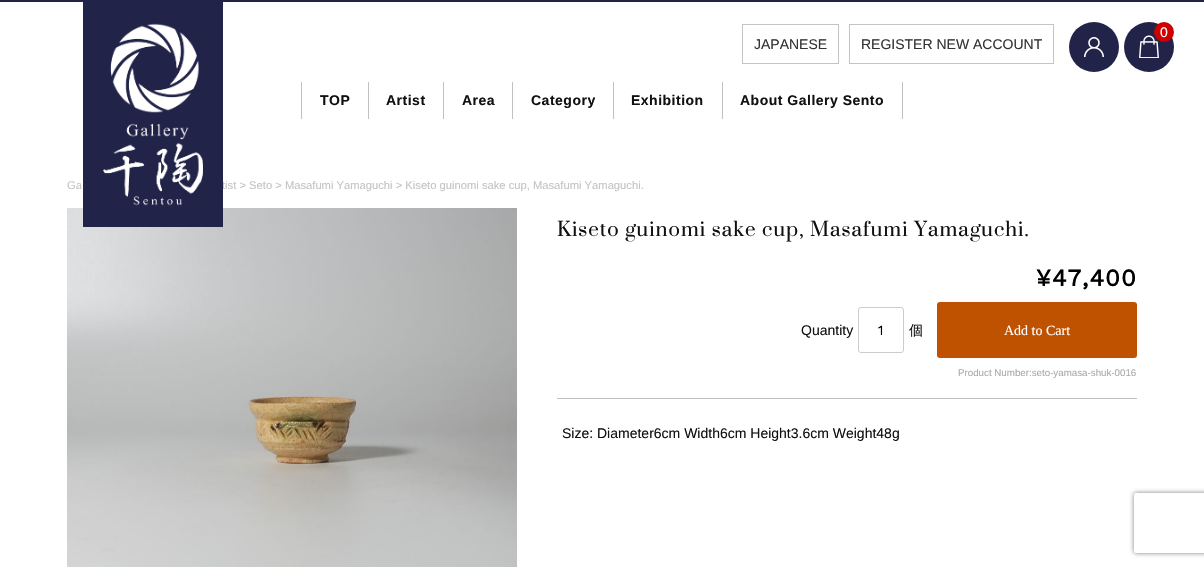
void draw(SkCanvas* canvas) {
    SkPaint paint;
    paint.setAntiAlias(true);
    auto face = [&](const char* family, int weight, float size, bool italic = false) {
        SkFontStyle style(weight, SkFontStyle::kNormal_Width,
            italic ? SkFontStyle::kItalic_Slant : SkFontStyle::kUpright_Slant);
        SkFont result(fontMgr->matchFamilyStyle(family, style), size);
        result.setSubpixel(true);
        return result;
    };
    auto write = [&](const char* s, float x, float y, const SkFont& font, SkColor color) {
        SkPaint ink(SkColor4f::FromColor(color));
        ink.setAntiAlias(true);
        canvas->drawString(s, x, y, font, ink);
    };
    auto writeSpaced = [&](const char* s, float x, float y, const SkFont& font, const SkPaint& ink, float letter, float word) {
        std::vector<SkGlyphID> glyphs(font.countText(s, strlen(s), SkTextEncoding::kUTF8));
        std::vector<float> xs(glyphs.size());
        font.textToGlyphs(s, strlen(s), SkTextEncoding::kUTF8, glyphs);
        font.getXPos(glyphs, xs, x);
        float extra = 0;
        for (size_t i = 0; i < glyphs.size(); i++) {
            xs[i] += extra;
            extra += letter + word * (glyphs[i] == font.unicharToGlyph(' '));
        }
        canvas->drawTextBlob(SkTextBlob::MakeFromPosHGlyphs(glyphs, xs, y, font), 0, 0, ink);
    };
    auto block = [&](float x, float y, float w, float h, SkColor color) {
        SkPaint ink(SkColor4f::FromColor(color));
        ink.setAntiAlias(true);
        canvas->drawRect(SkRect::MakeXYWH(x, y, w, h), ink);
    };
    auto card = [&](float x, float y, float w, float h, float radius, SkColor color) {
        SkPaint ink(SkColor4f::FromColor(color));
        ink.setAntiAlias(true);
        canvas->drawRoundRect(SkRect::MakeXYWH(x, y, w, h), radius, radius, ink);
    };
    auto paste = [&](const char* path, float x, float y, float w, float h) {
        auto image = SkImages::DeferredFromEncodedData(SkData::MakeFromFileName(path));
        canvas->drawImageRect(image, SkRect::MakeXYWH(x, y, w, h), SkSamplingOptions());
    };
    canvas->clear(SK_ColorWHITE);
    block(0, 0, 1204, 2, SkColorSetRGB(34, 35, 73));
    auto kFont1 = face("Liberation Sans", 400, 11.2f);
    write("tist > Seto > Masafumi Yamaguchi > Kiseto guinomi sake cup, Masafumi Yamaguchi.", 222, 189, kFont1, SkColorSetRGB(196, 196, 196));
    paste("pic4.png", 67, 208, 450, 359);
    block(83, 2, 140, 225, SkColorSetRGB(34, 35, 73));
    paste("pic1.png", 103, 23, 100, 183);
    paint.setColor(SkColorSetRGB(34, 35, 73));
    canvas->drawCircle(1094, 47, 25, paint);
    paste("pic2.png", 1084, 37, 20, 20);
    canvas->drawCircle(1149, 47, 25, paint);
    paste("pic3.png", 1139, 35, 20, 23);
    paint.setColor(SkColorSetRGB(204, 0, 0));
    canvas->drawCircle(1164, 32, 10, paint);
    auto kFont2 = face("Liberation Sans", 400, 14);
    write("0", 1160, 37, kFont2, SK_ColorWHITE);
    paint.setStyle(SkPaint::kStroke_Style);
    paint.setStrokeWidth(1);
    paint.setColor(SkColorSetRGB(196, 196, 196));
    canvas->drawRect(SkRect::MakeXYWH(742.5f, 24.5f, 96, 39), paint);
    write("JAPANESE", 754, 49, kFont2, SkColorSetRGB(51, 51, 51));
    canvas->drawRect(SkRect::MakeXYWH(849.5f, 24.5f, 204, 39), paint);
    write("REGISTER NEW ACCOUNT", 861, 49, kFont2, SkColorSetRGB(51, 51, 51));
    block(368, 82, 1, 37, SkColorSetRGB(193, 193, 196));
    block(301, 82, 1, 37, SkColorSetRGB(193, 193, 196));
    auto kFont3 = face("Liberation Sans", 700, 14);
    paint.setStyle(SkPaint::kFill_Style);
    paint.setColor(SkColorSetRGB(17, 17, 17));
    writeSpaced("TOP", 320, 105, kFont3, paint, 0.5f, 0);
    block(443, 82, 1, 37, SkColorSetRGB(193, 193, 196));
    writeSpaced("Artist", 386, 105, kFont3, paint, 0.5f, 0);
    block(512, 82, 1, 37, SkColorSetRGB(193, 193, 196));
    writeSpaced("Area", 462, 105, kFont3, paint, 0.5f, 0);
    block(613, 82, 1, 37, SkColorSetRGB(193, 193, 196));
    writeSpaced("Category", 531, 105, kFont3, paint, 0.5f, 0);
    block(722, 82, 1, 37, SkColorSetRGB(193, 193, 196));
    writeSpaced("Exhibition", 631, 105, kFont3, paint, 0.5f, 0);
    block(902, 82, 1, 37, SkColorSetRGB(193, 193, 196));
    writeSpaced("About Gallery Sento", 740, 105, kFont3, paint, 0.5f, 0);
    write("Ga", 67, 189, kFont1, SkColorSetRGB(196, 196, 196));
    auto kFont4 = face("Suranna", 400, 24);
    writeSpaced("Kiseto guinomi sake cup, Masafumi Yamaguchi.", 557, 236, kFont4, paint, 1, 0);
    block(557, 398, 580, 1, SkColorSetRGB(193, 193, 196));
    auto kFont5 = face("Work Sans", 700, 24);
    paint.setColor(SK_ColorBLACK);
    writeSpaced("¥47,400", 1036, 286, kFont5, paint, 1, 0);
    write("Quantity", 801, 335, kFont2, SkColorSetRGB(17, 17, 17));
    paint.setStyle(SkPaint::kStroke_Style);
    paint.setColor(SkColorSetRGB(204, 204, 204));
    canvas->drawRoundRect(SkRect::MakeXYWH(858.5f, 307.5f, 45, 45), 2.5f, 2.5f, paint);
    auto kFont6 = face("Work Sans", 400, 14);
    write("1", 878, 335, kFont6, SK_ColorBLACK);
    auto kFont7 = face("WenQuanYi Zen Hei", 500, 14);
    write("個", 909, 335, kFont7, SkColorSetRGB(17, 17, 17));
    card(937, 302, 200, 56, 3, SkColorSetRGB(191, 82, 0));
    auto kFont8 = face("Liberation Serif", 400, 14);
    write("Add to Cart", 1004, 335, kFont8, SK_ColorWHITE);
    auto kFont9 = face("Liberation Sans", 400, 9.75f);
    write("Product Number:seto-yamasa-shuk-0016", 958, 376, kFont9, SkColorSetRGB(170, 170, 170));
    write("Size: Diameter6cm Width6cm Height3.6cm Weight48g", 562, 438, kFont2, SkColorSetRGB(17, 17, 17));
    canvas->save();
    canvas->clipPath(SkPathBuilder(SkPathFillType::kEvenOdd).moveTo(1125, 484).lineTo(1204, 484).lineTo(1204, 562).lineTo(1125, 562).close().moveTo(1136, 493).lineTo(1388, 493).cubicTo(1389, 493, 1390, 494, 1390, 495).lineTo(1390, 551).cubicTo(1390, 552, 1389, 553, 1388, 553).lineTo(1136, 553).cubicTo(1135, 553, 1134, 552, 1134, 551).lineTo(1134, 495).cubicTo(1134, 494, 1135, 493, 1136, 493).close().detach(), true);
    paint.setStyle(SkPaint::kFill_Style);
    paint.setColor(SkColorSetRGB(128, 128, 128));
    paint.setMaskFilter(SkMaskFilter::MakeBlur(kNormal_SkBlurStyle, 2.5f));
    canvas->drawRoundRect(SkRect::MakeXYWH(1134, 493, 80, 60), 2, 2, paint);
    paint.setMaskFilter(nullptr);
    canvas->restore();
}
